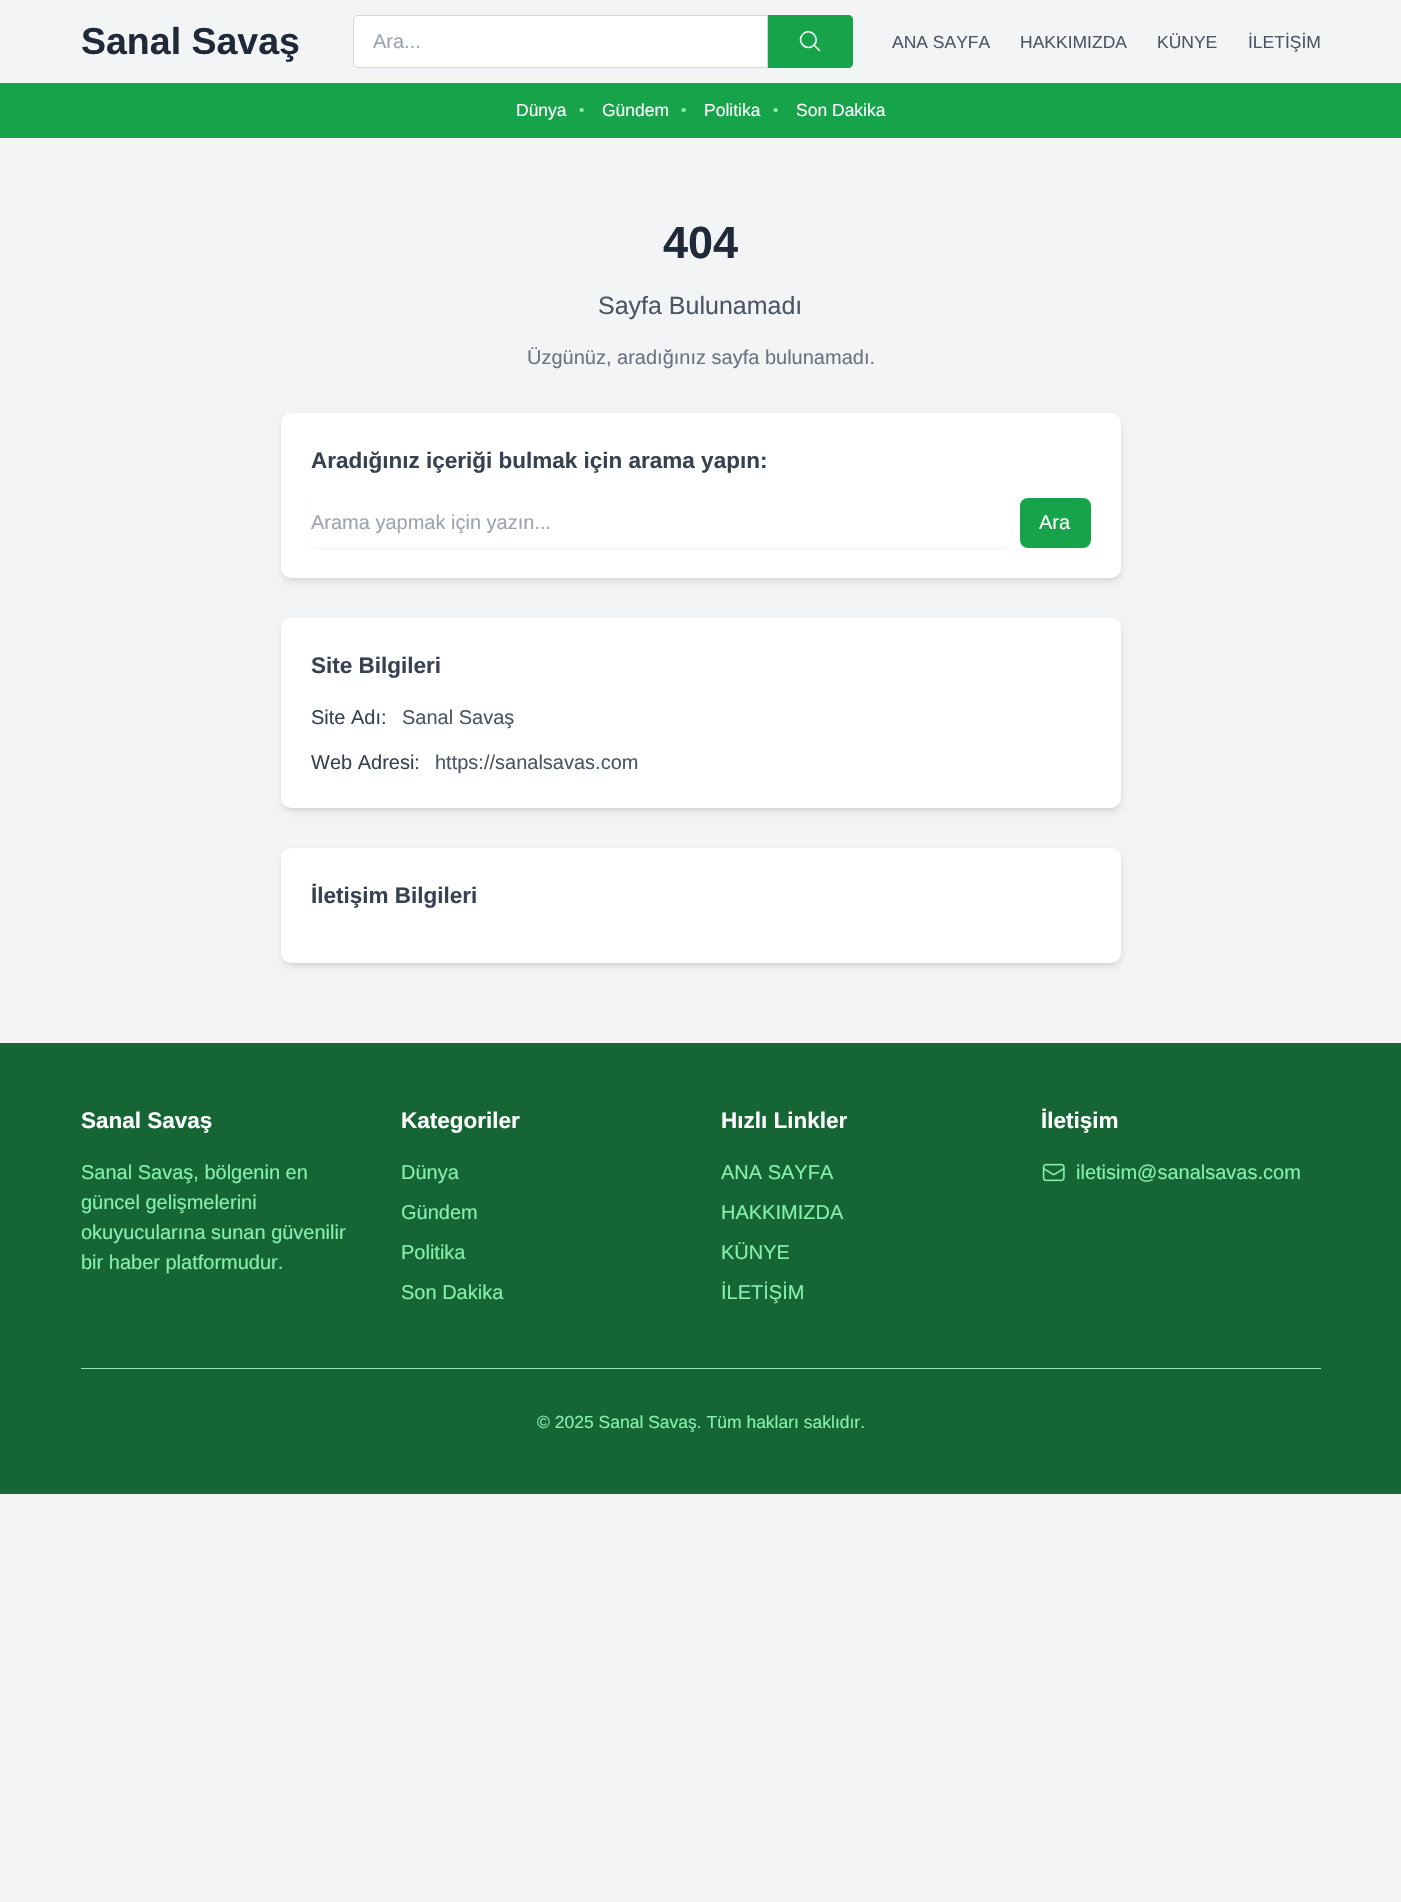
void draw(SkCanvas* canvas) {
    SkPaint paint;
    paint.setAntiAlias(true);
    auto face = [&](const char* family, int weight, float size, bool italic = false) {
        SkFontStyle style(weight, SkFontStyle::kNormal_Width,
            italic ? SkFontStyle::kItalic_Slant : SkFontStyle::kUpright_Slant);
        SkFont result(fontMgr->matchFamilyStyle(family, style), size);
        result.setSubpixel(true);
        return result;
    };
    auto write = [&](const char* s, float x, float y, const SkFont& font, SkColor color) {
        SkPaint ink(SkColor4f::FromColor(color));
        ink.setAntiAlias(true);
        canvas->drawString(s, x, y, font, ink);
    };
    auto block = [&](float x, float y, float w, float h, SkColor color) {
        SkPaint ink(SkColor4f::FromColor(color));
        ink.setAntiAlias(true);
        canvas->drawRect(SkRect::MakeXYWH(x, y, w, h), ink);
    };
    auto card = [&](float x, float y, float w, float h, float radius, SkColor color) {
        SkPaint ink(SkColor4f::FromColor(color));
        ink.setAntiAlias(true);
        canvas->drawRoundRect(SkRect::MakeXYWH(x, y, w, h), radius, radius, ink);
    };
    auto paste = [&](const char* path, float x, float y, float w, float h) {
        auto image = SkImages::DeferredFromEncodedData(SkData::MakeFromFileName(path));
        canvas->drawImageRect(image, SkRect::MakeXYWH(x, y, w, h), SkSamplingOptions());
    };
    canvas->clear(SkColorSetRGB(243, 244, 246));
    auto kFont1 = face("Liberation Sans", 700, 37.5f);
    write("Sanal Savaş", 81, 54, kFont1, SkColorSetRGB(31, 41, 55));
    paint.setColor(SK_ColorWHITE);
    canvas->drawPath(SkPathBuilder().moveTo(358, 15.5f).lineTo(767.5f, 15.5f).lineTo(767.5f, 67.5f).lineTo(358, 67.5f).cubicTo(355.5f, 67.5f, 353.5f, 65.5f, 353.5f, 63).lineTo(353.5f, 20).cubicTo(353.5f, 17.5f, 355.5f, 15.5f, 358, 15.5f).close().detach(), paint);
    paint.setStyle(SkPaint::kStroke_Style);
    paint.setStrokeWidth(1);
    paint.setColor(SkColorSetRGB(209, 213, 219));
    canvas->drawPath(SkPathBuilder().moveTo(358, 15.5f).lineTo(767.5f, 15.5f).lineTo(767.5f, 67.5f).lineTo(358, 67.5f).cubicTo(355.5f, 67.5f, 353.5f, 65.5f, 353.5f, 63).lineTo(353.5f, 20).cubicTo(353.5f, 17.5f, 355.5f, 15.5f, 358, 15.5f).close().detach(), paint);
    auto kFont2 = face("Liberation Sans", 400, 20);
    write("Ara...", 373, 48, kFont2, SkColorSetRGB(156, 163, 175));
    paint.setStyle(SkPaint::kFill_Style);
    paint.setColor(SkColorSetRGB(22, 163, 74));
    canvas->drawPath(SkPathBuilder().moveTo(768, 15).lineTo(848, 15).cubicTo(851, 15, 853, 17, 853, 20).lineTo(853, 63).cubicTo(853, 66, 851, 68, 848, 68).lineTo(768, 68).close().detach(), paint);
    paint.setStyle(SkPaint::kStroke_Style);
    paint.setStrokeWidth(1.6f);
    paint.setStrokeCap(SkPaint::kRound_Cap);
    paint.setStrokeJoin(SkPaint::kRound_Join);
    paint.setColor(SK_ColorWHITE);
    canvas->drawPath(SkPathBuilder().moveTo(819.5f, 50.5f).lineTo(814, 45).moveTo(814, 45).cubicTo(821, 38, 810, 27, 803, 34).cubicTo(795.5f, 41.5f, 806.5f, 52.5f, 814, 45).close().detach(), paint);
    auto kFont3 = face("Liberation Sans", 400, 17.5f);
    write("ANA SAYFA", 892, 48, kFont3, SkColorSetRGB(75, 85, 99));
    write("HAKKIMIZDA", 1020, 48, kFont3, SkColorSetRGB(75, 85, 99));
    write("KÜNYE", 1157, 48, kFont3, SkColorSetRGB(75, 85, 99));
    write("İLETİŞİM", 1248, 48, kFont3, SkColorSetRGB(75, 85, 99));
    block(0, 83, 1401, 55, SkColorSetRGB(22, 163, 74));
    write("Dünya", 516, 116, kFont3, SK_ColorWHITE);
    auto kFont4 = face("Liberation Sans", 400, 15);
    write("•", 579, 115, kFont4, SkColorSetRGB(134, 239, 172));
    write("Gündem", 602, 116, kFont3, SK_ColorWHITE);
    write("•", 681, 115, kFont4, SkColorSetRGB(134, 239, 172));
    write("Politika", 704, 116, kFont3, SK_ColorWHITE);
    write("•", 773, 115, kFont4, SkColorSetRGB(134, 239, 172));
    write("Son Dakika", 796, 116, kFont3, SK_ColorWHITE);
    auto kFont5 = face("Liberation Sans", 700, 45);
    write("404", 663, 258, kFont5, SkColorSetRGB(31, 41, 55));
    auto kFont6 = face("Liberation Sans", 400, 25);
    write("Sayfa Bulunamadı", 598, 314, kFont6, SkColorSetRGB(75, 85, 99));
    write("Üzgünüz, aradığınız sayfa bulunamadı.", 527, 364, kFont2, SkColorSetRGB(107, 114, 128));
    paint.setStyle(SkPaint::kFill_Style);
    paint.setColor(SkColorSetARGB(26, 0, 0, 0));
    paint.setMaskFilter(SkMaskFilter::MakeBlur(kNormal_SkBlurStyle, 2.5f));
    canvas->drawRoundRect(SkRect::MakeXYWH(284, 418, 835, 160), 8, 8, paint);
    paint.setMaskFilter(nullptr);
    paint.setMaskFilter(SkMaskFilter::MakeBlur(kNormal_SkBlurStyle, 4));
    canvas->drawRoundRect(SkRect::MakeXYWH(283, 419, 837, 162), 9, 9, paint);
    paint.setMaskFilter(nullptr);
    card(281, 413, 840, 165, 10, SK_ColorWHITE);
    auto kFont7 = face("Liberation Sans", 700, 22.5f);
    write("Aradığınız içeriği bulmak için arama yapın:", 311, 468, kFont7, SkColorSetRGB(55, 65, 81));
    paint.setColor(SkColorSetARGB(13, 0, 0, 0));
    paint.setMaskFilter(SkMaskFilter::MakeBlur(kNormal_SkBlurStyle, 1));
    canvas->drawRoundRect(SkRect::MakeXYWH(311, 499, 699, 50), 8, 8, paint);
    paint.setMaskFilter(nullptr);
    card(311, 498, 699, 50, 8, SK_ColorWHITE);
    write("Arama yapmak için yazın...", 311, 529, kFont2, SkColorSetRGB(156, 163, 175));
    card(1020, 498, 71, 50, 8, SkColorSetRGB(22, 163, 74));
    write("Ara", 1039, 529, kFont2, SK_ColorWHITE);
    paint.setColor(SkColorSetARGB(26, 0, 0, 0));
    paint.setMaskFilter(SkMaskFilter::MakeBlur(kNormal_SkBlurStyle, 2.5f));
    canvas->drawRoundRect(SkRect::MakeXYWH(284, 623, 835, 185), 8, 8, paint);
    paint.setMaskFilter(nullptr);
    paint.setMaskFilter(SkMaskFilter::MakeBlur(kNormal_SkBlurStyle, 4));
    canvas->drawRoundRect(SkRect::MakeXYWH(283, 624, 837, 187), 9, 9, paint);
    paint.setMaskFilter(nullptr);
    card(281, 618, 840, 190, 10, SK_ColorWHITE);
    write("Site Bilgileri", 311, 673, kFont7, SkColorSetRGB(55, 65, 81));
    write("Site Adı:", 311, 724, kFont2, SkColorSetRGB(55, 65, 81));
    write("Sanal Savaş", 402, 724, kFont2, SkColorSetRGB(75, 85, 99));
    write("Web Adresi:", 311, 769, kFont2, SkColorSetRGB(55, 65, 81));
    write("https://sanalsavas.com", 435, 769, kFont2, SkColorSetRGB(75, 85, 99));
    paint.setMaskFilter(SkMaskFilter::MakeBlur(kNormal_SkBlurStyle, 2.5f));
    canvas->drawRoundRect(SkRect::MakeXYWH(284, 853, 835, 110), 8, 8, paint);
    paint.setMaskFilter(nullptr);
    paint.setMaskFilter(SkMaskFilter::MakeBlur(kNormal_SkBlurStyle, 4));
    canvas->drawRoundRect(SkRect::MakeXYWH(283, 854, 837, 112), 9, 9, paint);
    paint.setMaskFilter(nullptr);
    card(281, 848, 840, 115, 10, SK_ColorWHITE);
    write("İletişim Bilgileri", 311, 903, kFont7, SkColorSetRGB(55, 65, 81));
    block(0, 1043, 1401, 451, SkColorSetRGB(22, 101, 52));
    write("Sanal Savaş", 81, 1128, kFont7, SK_ColorWHITE);
    write("Sanal Savaş, bölgenin en", 81, 1179, kFont2, SkColorSetRGB(134, 239, 172));
    write("güncel gelişmelerini", 81, 1209, kFont2, SkColorSetRGB(134, 239, 172));
    write("okuyucularına sunan güvenilir", 81, 1239, kFont2, SkColorSetRGB(134, 239, 172));
    write("bir haber platformudur.", 81, 1269, kFont2, SkColorSetRGB(134, 239, 172));
    write("Kategoriler", 401, 1128, kFont7, SK_ColorWHITE);
    write("Dünya", 401, 1179, kFont2, SkColorSetRGB(134, 239, 172));
    write("Gündem", 401, 1219, kFont2, SkColorSetRGB(134, 239, 172));
    write("Politika", 401, 1259, kFont2, SkColorSetRGB(134, 239, 172));
    write("Son Dakika", 401, 1299, kFont2, SkColorSetRGB(134, 239, 172));
    write("Hızlı Linkler", 721, 1128, kFont7, SK_ColorWHITE);
    write("ANA SAYFA", 721, 1179, kFont2, SkColorSetRGB(134, 239, 172));
    write("HAKKIMIZDA", 721, 1219, kFont2, SkColorSetRGB(134, 239, 172));
    write("KÜNYE", 721, 1259, kFont2, SkColorSetRGB(134, 239, 172));
    write("İLETİŞİM", 721, 1299, kFont2, SkColorSetRGB(134, 239, 172));
    write("İletişim", 1041, 1128, kFont7, SK_ColorWHITE);
    paste("pic1.png", 1042, 1163, 23, 19);
    write("iletisim@sanalsavas.com", 1076, 1179, kFont2, SkColorSetRGB(134, 239, 172));
    block(81, 1368, 1240, 1, SkColorSetRGB(134, 239, 172));
    write("© 2025 Sanal Savaş. Tüm hakları saklıdır.", 537, 1428, kFont3, SkColorSetRGB(134, 239, 172));
}
